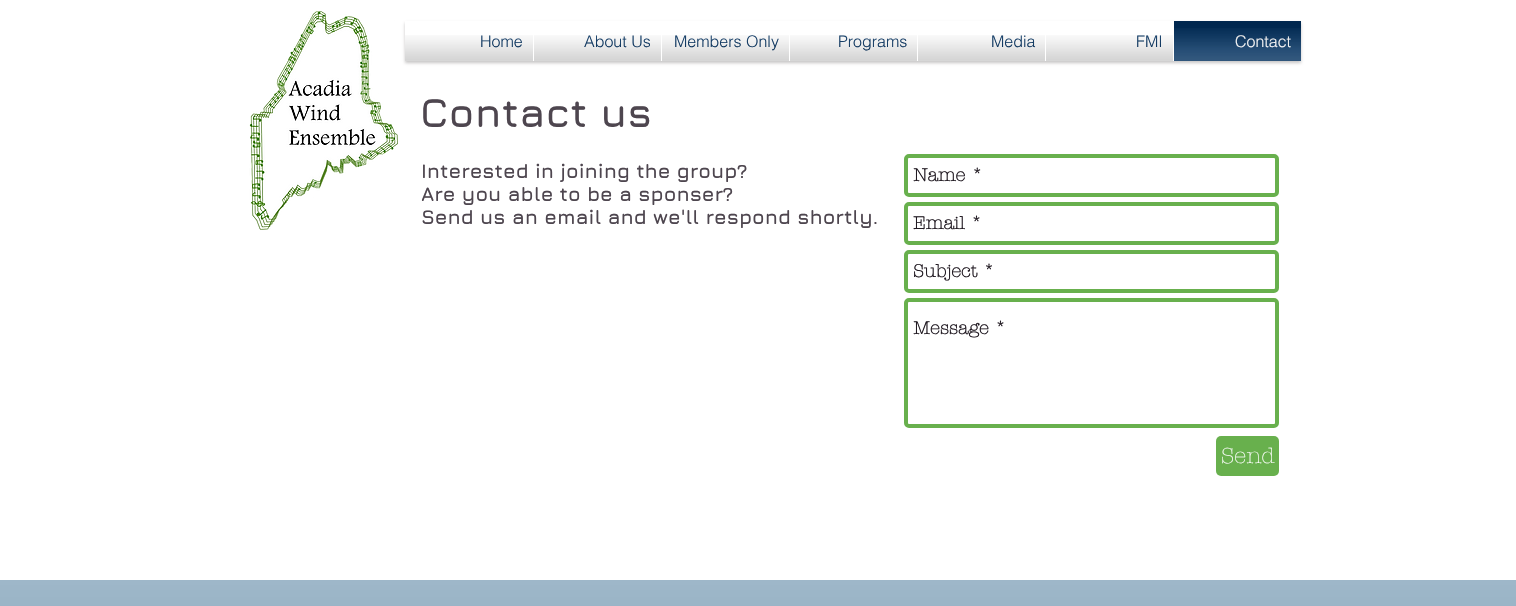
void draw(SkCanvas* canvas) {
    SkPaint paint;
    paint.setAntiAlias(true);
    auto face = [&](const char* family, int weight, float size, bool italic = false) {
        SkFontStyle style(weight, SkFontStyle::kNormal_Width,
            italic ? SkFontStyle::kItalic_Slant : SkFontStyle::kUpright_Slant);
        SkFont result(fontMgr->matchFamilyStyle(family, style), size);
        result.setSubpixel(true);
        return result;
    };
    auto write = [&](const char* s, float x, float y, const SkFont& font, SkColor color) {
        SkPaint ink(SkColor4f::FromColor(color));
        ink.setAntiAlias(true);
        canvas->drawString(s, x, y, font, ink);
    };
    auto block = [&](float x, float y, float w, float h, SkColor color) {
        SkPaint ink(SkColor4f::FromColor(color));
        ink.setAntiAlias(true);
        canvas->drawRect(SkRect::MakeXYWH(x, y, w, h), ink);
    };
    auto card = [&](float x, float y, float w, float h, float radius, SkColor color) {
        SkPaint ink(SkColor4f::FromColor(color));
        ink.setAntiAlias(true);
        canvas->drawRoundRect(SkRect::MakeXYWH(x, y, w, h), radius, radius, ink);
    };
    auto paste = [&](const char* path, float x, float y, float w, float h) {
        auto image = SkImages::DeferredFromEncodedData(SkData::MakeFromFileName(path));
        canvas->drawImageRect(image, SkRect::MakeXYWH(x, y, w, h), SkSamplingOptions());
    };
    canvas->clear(SK_ColorWHITE);
    paint.setColor(SkColorSetARGB(153, 162, 158, 158));
    paint.setMaskFilter(SkMaskFilter::MakeBlur(kNormal_SkBlurStyle, 1.5f));
    canvas->drawRect(SkRect::MakeXYWH(405, 23, 896, 40), paint);
    paint.setMaskFilter(nullptr);
    block(405, 21, 769, 40, SK_ColorWHITE);
    auto kFont1 = face("helvetica", 300, 16);
    write("Home", 480, 47, kFont1, SkColorSetRGB(0, 46, 93));
    paste("pic1.png", 481, 35, 42, 12);
    paste("pic2.png", 405, 35, 128, 26);
    write("About Us", 584, 47, kFont1, SkColorSetRGB(0, 46, 93));
    paste("pic3.png", 585, 35, 65, 12);
    paste("pic4.png", 534, 35, 127, 26);
    write("Members Only", 674, 47, kFont1, SkColorSetRGB(0, 46, 93));
    paste("pic5.png", 675, 35, 104, 15);
    paste("pic6.png", 662, 35, 127, 26);
    write("Programs", 838, 47, kFont1, SkColorSetRGB(0, 46, 93));
    paste("pic7.png", 839, 35, 67, 15);
    paste("pic8.png", 790, 35, 127, 26);
    write("Media", 991, 47, kFont1, SkColorSetRGB(0, 46, 93));
    paste("pic9.png", 991, 35, 44, 12);
    paste("pic10.png", 918, 35, 127, 26);
    write("FMI", 1136, 47, kFont1, SkColorSetRGB(0, 46, 93));
    paste("pic11.png", 1137, 35, 25, 12);
    paste("pic12.png", 1046, 35, 127, 26);
    block(1174, 21, 127, 40, SkColorSetRGB(0, 46, 93));
    write("Contact", 1235, 47, kFont1, SK_ColorWHITE);
    paste("pic13.png", 1174, 21, 127, 26);
    paste("pic14.png", 1174, 28, 127, 33);
    paste("pic15.png", 249, 11, 149, 219);
    auto kFont2 = face("Jura", 700, 41);
    write("Contact us", 420, 127, kFont2, SkColorSetRGB(78, 70, 79));
    auto kFont3 = face("Jura", 700, 20);
    write("Interested in joining the group?", 421, 178, kFont3, SkColorSetRGB(78, 70, 79));
    write("Are you able to be a sponser?", 421, 201, kFont3, SkColorSetRGB(78, 70, 79));
    write("Send us an email and we'll respond shortly.", 421, 224, kFont3, SkColorSetRGB(78, 70, 79));
    paint.setStyle(SkPaint::kStroke_Style);
    paint.setStrokeWidth(4);
    paint.setColor(SkColorSetRGB(104, 176, 77));
    canvas->drawRoundRect(SkRect::MakeXYWH(906, 156, 371, 39), 3, 3, paint);
    auto kFont4 = face("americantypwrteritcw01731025", 700, 18);
    write("Name *", 913, 181, kFont4, SkColorSetRGB(34, 27, 35));
    canvas->drawRoundRect(SkRect::MakeXYWH(906, 204, 371, 39), 3, 3, paint);
    write("Email *", 913, 229, kFont4, SkColorSetRGB(34, 27, 35));
    canvas->drawRoundRect(SkRect::MakeXYWH(906, 252, 371, 39), 3, 3, paint);
    write("Subject *", 913, 277, kFont4, SkColorSetRGB(34, 27, 35));
    canvas->drawRoundRect(SkRect::MakeXYWH(906, 300, 371, 126), 3, 3, paint);
    write("Message *", 913, 334, kFont4, SkColorSetRGB(34, 27, 35));
    card(1216, 436, 63, 40, 5, SkColorSetRGB(104, 176, 77));
    auto kFont5 = face("americantypwrteritcw01731025", 300, 22);
    write("Send", 1221, 463, kFont5, SK_ColorWHITE);
    block(0, 580, 1516, 26, SkColorSetRGB(124, 158, 182));
    paste("pic16.png", 0, 580, 1516, 26);
}
